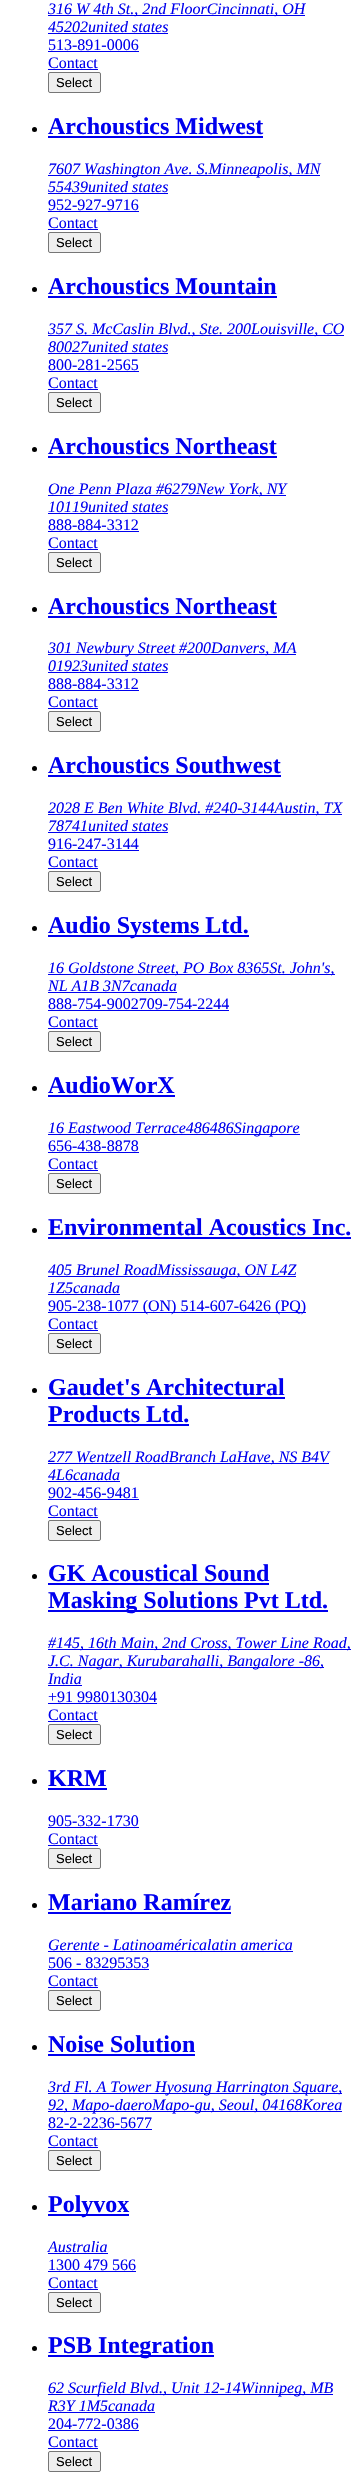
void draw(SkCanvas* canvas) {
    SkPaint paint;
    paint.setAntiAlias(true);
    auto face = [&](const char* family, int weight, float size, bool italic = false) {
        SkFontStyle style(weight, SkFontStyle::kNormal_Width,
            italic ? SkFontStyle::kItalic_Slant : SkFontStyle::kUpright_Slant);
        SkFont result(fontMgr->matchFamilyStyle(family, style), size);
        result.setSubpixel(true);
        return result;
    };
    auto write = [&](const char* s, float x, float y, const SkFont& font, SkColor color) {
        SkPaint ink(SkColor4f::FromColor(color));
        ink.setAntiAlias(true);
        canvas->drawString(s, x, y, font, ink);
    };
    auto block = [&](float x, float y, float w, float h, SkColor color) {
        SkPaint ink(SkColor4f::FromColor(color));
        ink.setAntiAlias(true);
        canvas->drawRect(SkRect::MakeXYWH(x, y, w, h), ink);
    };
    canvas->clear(SK_ColorWHITE);
    block(48, 15, 257, 1, SkColorSetRGB(0, 0, 238));
    auto kFont1 = face("Liberation Serif", 400, 16, true);
    write("316 W 4th St., 2nd FloorCincinnati, OH", 48, 14, kFont1, SkColorSetRGB(0, 0, 238));
    write("45202united states", 48, 32, kFont1, SkColorSetRGB(0, 0, 238));
    block(48, 33, 120, 1, SkColorSetRGB(0, 0, 238));
    auto kFont2 = face("Liberation Serif", 400, 16);
    write("513-891-0006", 48, 50, kFont2, SkColorSetRGB(0, 0, 238));
    block(48, 51, 91, 1, SkColorSetRGB(0, 0, 238));
    write("Contact", 48, 68, kFont2, SkColorSetRGB(0, 0, 238));
    block(48, 69, 50, 1, SkColorSetRGB(0, 0, 238));
    paint.setColor(SkColorSetRGB(239, 239, 239));
    canvas->drawRoundRect(SkRect::MakeXYWH(48.5f, 72.5f, 52, 20), 1.5f, 1.5f, paint);
    paint.setStyle(SkPaint::kStroke_Style);
    paint.setStrokeWidth(1);
    paint.setColor(SkColorSetRGB(118, 118, 118));
    canvas->drawRoundRect(SkRect::MakeXYWH(48.5f, 72.5f, 52, 20), 1.5f, 1.5f, paint);
    auto kFont3 = face("Liberation Sans", 400, 13);
    write("Select", 56, 87, kFont3, SK_ColorBLACK);
    paint.setStyle(SkPaint::kFill_Style);
    paint.setColor(SK_ColorBLACK);
    canvas->drawCircle(34.5f, 129.5f, 2.5f, paint);
    auto kFont4 = face("Liberation Serif", 700, 24);
    write("Archoustics Midwest", 48, 134, kFont4, SkColorSetRGB(0, 0, 238));
    block(48, 136, 215, 2, SkColorSetRGB(0, 0, 238));
    block(48, 175, 272, 1, SkColorSetRGB(0, 0, 238));
    write("7607 Washington Ave. S.Minneapolis, MN", 48, 174, kFont1, SkColorSetRGB(0, 0, 238));
    write("55439united states", 48, 192, kFont1, SkColorSetRGB(0, 0, 238));
    block(48, 193, 120, 1, SkColorSetRGB(0, 0, 238));
    write("952-927-9716", 48, 210, kFont2, SkColorSetRGB(0, 0, 238));
    block(48, 211, 91, 1, SkColorSetRGB(0, 0, 238));
    write("Contact", 48, 228, kFont2, SkColorSetRGB(0, 0, 238));
    block(48, 229, 50, 1, SkColorSetRGB(0, 0, 238));
    paint.setColor(SkColorSetRGB(239, 239, 239));
    canvas->drawRoundRect(SkRect::MakeXYWH(48.5f, 232.5f, 52, 20), 1.5f, 1.5f, paint);
    paint.setStyle(SkPaint::kStroke_Style);
    paint.setColor(SkColorSetRGB(118, 118, 118));
    canvas->drawRoundRect(SkRect::MakeXYWH(48.5f, 232.5f, 52, 20), 1.5f, 1.5f, paint);
    write("Select", 56, 247, kFont3, SK_ColorBLACK);
    paint.setStyle(SkPaint::kFill_Style);
    paint.setColor(SK_ColorBLACK);
    canvas->drawCircle(34.5f, 289.5f, 2.5f, paint);
    write("Archoustics Mountain", 48, 294, kFont4, SkColorSetRGB(0, 0, 238));
    block(48, 296, 229, 2, SkColorSetRGB(0, 0, 238));
    block(48, 335, 296, 1, SkColorSetRGB(0, 0, 238));
    write("357 S. McCaslin Blvd., Ste. 200Louisville, CO", 48, 334, kFont1, SkColorSetRGB(0, 0, 238));
    write("80027united states", 48, 352, kFont1, SkColorSetRGB(0, 0, 238));
    block(48, 353, 120, 1, SkColorSetRGB(0, 0, 238));
    write("800-281-2565", 48, 370, kFont2, SkColorSetRGB(0, 0, 238));
    block(48, 371, 91, 1, SkColorSetRGB(0, 0, 238));
    write("Contact", 48, 388, kFont2, SkColorSetRGB(0, 0, 238));
    block(48, 389, 50, 1, SkColorSetRGB(0, 0, 238));
    paint.setColor(SkColorSetRGB(239, 239, 239));
    canvas->drawRoundRect(SkRect::MakeXYWH(48.5f, 392.5f, 52, 20), 1.5f, 1.5f, paint);
    paint.setStyle(SkPaint::kStroke_Style);
    paint.setColor(SkColorSetRGB(118, 118, 118));
    canvas->drawRoundRect(SkRect::MakeXYWH(48.5f, 392.5f, 52, 20), 1.5f, 1.5f, paint);
    write("Select", 56, 407, kFont3, SK_ColorBLACK);
    paint.setStyle(SkPaint::kFill_Style);
    paint.setColor(SK_ColorBLACK);
    canvas->drawCircle(34.5f, 449.5f, 2.5f, paint);
    write("Archoustics Northeast", 48, 454, kFont4, SkColorSetRGB(0, 0, 238));
    block(48, 456, 229, 2, SkColorSetRGB(0, 0, 238));
    block(48, 495, 238, 1, SkColorSetRGB(0, 0, 238));
    write("One Penn Plaza #6279New York, NY", 48, 494, kFont1, SkColorSetRGB(0, 0, 238));
    write("10119united states", 48, 512, kFont1, SkColorSetRGB(0, 0, 238));
    block(48, 513, 120, 1, SkColorSetRGB(0, 0, 238));
    write("888-884-3312", 48, 530, kFont2, SkColorSetRGB(0, 0, 238));
    block(48, 531, 91, 1, SkColorSetRGB(0, 0, 238));
    write("Contact", 48, 548, kFont2, SkColorSetRGB(0, 0, 238));
    block(48, 549, 50, 1, SkColorSetRGB(0, 0, 238));
    paint.setColor(SkColorSetRGB(239, 239, 239));
    canvas->drawRoundRect(SkRect::MakeXYWH(48.5f, 552.5f, 52, 20), 1.5f, 1.5f, paint);
    paint.setStyle(SkPaint::kStroke_Style);
    paint.setColor(SkColorSetRGB(118, 118, 118));
    canvas->drawRoundRect(SkRect::MakeXYWH(48.5f, 552.5f, 52, 20), 1.5f, 1.5f, paint);
    write("Select", 56, 567, kFont3, SK_ColorBLACK);
    paint.setStyle(SkPaint::kFill_Style);
    paint.setColor(SK_ColorBLACK);
    canvas->drawCircle(34.5f, 609.5f, 2.5f, paint);
    write("Archoustics Northeast", 48, 614, kFont4, SkColorSetRGB(0, 0, 238));
    block(48, 616, 229, 2, SkColorSetRGB(0, 0, 238));
    block(48, 654, 248, 1, SkColorSetRGB(0, 0, 238));
    write("301 Newbury Street #200Danvers, MA", 48, 653, kFont1, SkColorSetRGB(0, 0, 238));
    write("01923united states", 48, 671, kFont1, SkColorSetRGB(0, 0, 238));
    block(48, 672, 120, 1, SkColorSetRGB(0, 0, 238));
    write("888-884-3312", 48, 689, kFont2, SkColorSetRGB(0, 0, 238));
    block(48, 690, 91, 1, SkColorSetRGB(0, 0, 238));
    write("Contact", 48, 707, kFont2, SkColorSetRGB(0, 0, 238));
    block(48, 708, 50, 1, SkColorSetRGB(0, 0, 238));
    paint.setColor(SkColorSetRGB(239, 239, 239));
    canvas->drawRoundRect(SkRect::MakeXYWH(48.5f, 711.5f, 52, 20), 1.5f, 1.5f, paint);
    paint.setStyle(SkPaint::kStroke_Style);
    paint.setColor(SkColorSetRGB(118, 118, 118));
    canvas->drawRoundRect(SkRect::MakeXYWH(48.5f, 711.5f, 52, 20), 1.5f, 1.5f, paint);
    write("Select", 56, 726, kFont3, SK_ColorBLACK);
    paint.setStyle(SkPaint::kFill_Style);
    paint.setColor(SK_ColorBLACK);
    canvas->drawCircle(34.5f, 768.5f, 2.5f, paint);
    write("Archoustics Southwest", 48, 773, kFont4, SkColorSetRGB(0, 0, 238));
    block(48, 775, 233, 2, SkColorSetRGB(0, 0, 238));
    block(48, 814, 294, 1, SkColorSetRGB(0, 0, 238));
    write("2028 E Ben White Blvd. #240-3144Austin, TX", 48, 813, kFont1, SkColorSetRGB(0, 0, 238));
    write("78741united states", 48, 831, kFont1, SkColorSetRGB(0, 0, 238));
    block(48, 832, 120, 1, SkColorSetRGB(0, 0, 238));
    write("916-247-3144", 48, 849, kFont2, SkColorSetRGB(0, 0, 238));
    block(48, 850, 91, 1, SkColorSetRGB(0, 0, 238));
    write("Contact", 48, 867, kFont2, SkColorSetRGB(0, 0, 238));
    block(48, 868, 50, 1, SkColorSetRGB(0, 0, 238));
    paint.setColor(SkColorSetRGB(239, 239, 239));
    canvas->drawRoundRect(SkRect::MakeXYWH(48.5f, 871.5f, 52, 20), 1.5f, 1.5f, paint);
    paint.setStyle(SkPaint::kStroke_Style);
    paint.setColor(SkColorSetRGB(118, 118, 118));
    canvas->drawRoundRect(SkRect::MakeXYWH(48.5f, 871.5f, 52, 20), 1.5f, 1.5f, paint);
    write("Select", 56, 886, kFont3, SK_ColorBLACK);
    paint.setStyle(SkPaint::kFill_Style);
    paint.setColor(SK_ColorBLACK);
    canvas->drawCircle(34.5f, 928.5f, 2.5f, paint);
    block(48, 935, 201, 2, SkColorSetRGB(0, 0, 238));
    write("Audio Systems Ltd.", 48, 933, kFont4, SkColorSetRGB(0, 0, 238));
    block(48, 974, 287, 1, SkColorSetRGB(0, 0, 238));
    write("16 Goldstone Street, PO Box 8365St. John's,", 48, 973, kFont1, SkColorSetRGB(0, 0, 238));
    write("NL A1B 3N7canada", 48, 991, kFont1, SkColorSetRGB(0, 0, 238));
    block(48, 992, 129, 1, SkColorSetRGB(0, 0, 238));
    write("888-754-9002709-754-2244", 48, 1009, kFont2, SkColorSetRGB(0, 0, 238));
    block(48, 1010, 181, 1, SkColorSetRGB(0, 0, 238));
    write("Contact", 48, 1027, kFont2, SkColorSetRGB(0, 0, 238));
    block(48, 1028, 50, 1, SkColorSetRGB(0, 0, 238));
    paint.setColor(SkColorSetRGB(239, 239, 239));
    canvas->drawRoundRect(SkRect::MakeXYWH(48.5f, 1031.5f, 52, 20), 1.5f, 1.5f, paint);
    paint.setStyle(SkPaint::kStroke_Style);
    paint.setColor(SkColorSetRGB(118, 118, 118));
    canvas->drawRoundRect(SkRect::MakeXYWH(48.5f, 1031.5f, 52, 20), 1.5f, 1.5f, paint);
    write("Select", 56, 1046, kFont3, SK_ColorBLACK);
    paint.setStyle(SkPaint::kFill_Style);
    paint.setColor(SK_ColorBLACK);
    canvas->drawCircle(34.5f, 1088.5f, 2.5f, paint);
    write("AudioWorX", 48, 1093, kFont4, SkColorSetRGB(0, 0, 238));
    block(48, 1095, 127, 2, SkColorSetRGB(0, 0, 238));
    block(48, 1134, 252, 1, SkColorSetRGB(0, 0, 238));
    write("16 Eastwood Terrace486486Singapore", 48, 1133, kFont1, SkColorSetRGB(0, 0, 238));
    write("656-438-8878", 48, 1151, kFont2, SkColorSetRGB(0, 0, 238));
    block(48, 1152, 91, 1, SkColorSetRGB(0, 0, 238));
    write("Contact", 48, 1169, kFont2, SkColorSetRGB(0, 0, 238));
    block(48, 1170, 50, 1, SkColorSetRGB(0, 0, 238));
    paint.setColor(SkColorSetRGB(239, 239, 239));
    canvas->drawRoundRect(SkRect::MakeXYWH(48.5f, 1173.5f, 52, 20), 1.5f, 1.5f, paint);
    paint.setStyle(SkPaint::kStroke_Style);
    paint.setColor(SkColorSetRGB(118, 118, 118));
    canvas->drawRoundRect(SkRect::MakeXYWH(48.5f, 1173.5f, 52, 20), 1.5f, 1.5f, paint);
    write("Select", 56, 1188, kFont3, SK_ColorBLACK);
    paint.setStyle(SkPaint::kFill_Style);
    paint.setColor(SK_ColorBLACK);
    canvas->drawCircle(34.5f, 1230.5f, 2.5f, paint);
    write("Environmental Acoustics Inc.", 48, 1235, kFont4, SkColorSetRGB(0, 0, 238));
    block(48, 1237, 303, 2, SkColorSetRGB(0, 0, 238));
    block(48, 1276, 219, 1, SkColorSetRGB(0, 0, 238));
    write("405 Brunel RoadMississauga, ON L4Z", 48, 1275, kFont1, SkColorSetRGB(0, 0, 238));
    block(267, 1276, 29, 1, SkColorSetRGB(0, 0, 238));
    write("1Z5canada", 48, 1293, kFont1, SkColorSetRGB(0, 0, 238));
    block(48, 1294, 72, 1, SkColorSetRGB(0, 0, 238));
    block(48, 1312, 258, 1, SkColorSetRGB(0, 0, 238));
    write("905-238-1077 (ON) 514-607-6426 (PQ)", 48, 1311, kFont2, SkColorSetRGB(0, 0, 238));
    write("Contact", 48, 1329, kFont2, SkColorSetRGB(0, 0, 238));
    block(48, 1330, 50, 1, SkColorSetRGB(0, 0, 238));
    paint.setColor(SkColorSetRGB(239, 239, 239));
    canvas->drawRoundRect(SkRect::MakeXYWH(48.5f, 1333.5f, 52, 20), 1.5f, 1.5f, paint);
    paint.setStyle(SkPaint::kStroke_Style);
    paint.setColor(SkColorSetRGB(118, 118, 118));
    canvas->drawRoundRect(SkRect::MakeXYWH(48.5f, 1333.5f, 52, 20), 1.5f, 1.5f, paint);
    write("Select", 56, 1348, kFont3, SK_ColorBLACK);
    paint.setStyle(SkPaint::kFill_Style);
    paint.setColor(SK_ColorBLACK);
    canvas->drawCircle(34.5f, 1390.5f, 2.5f, paint);
    write("Gaudet's Architectural", 48, 1395, kFont4, SkColorSetRGB(0, 0, 238));
    block(48, 1397, 237, 2, SkColorSetRGB(0, 0, 238));
    write("Products Ltd.", 48, 1422, kFont4, SkColorSetRGB(0, 0, 238));
    block(48, 1424, 141, 2, SkColorSetRGB(0, 0, 238));
    block(48, 1463, 249, 1, SkColorSetRGB(0, 0, 238));
    write("277 Wentzell RoadBranch LaHave, NS B4V", 48, 1462, kFont1, SkColorSetRGB(0, 0, 238));
    block(297, 1463, 32, 1, SkColorSetRGB(0, 0, 238));
    write("4L6canada", 48, 1480, kFont1, SkColorSetRGB(0, 0, 238));
    block(48, 1481, 72, 1, SkColorSetRGB(0, 0, 238));
    write("902-456-9481", 48, 1498, kFont2, SkColorSetRGB(0, 0, 238));
    block(48, 1499, 91, 1, SkColorSetRGB(0, 0, 238));
    write("Contact", 48, 1516, kFont2, SkColorSetRGB(0, 0, 238));
    block(48, 1517, 50, 1, SkColorSetRGB(0, 0, 238));
    paint.setColor(SkColorSetRGB(239, 239, 239));
    canvas->drawRoundRect(SkRect::MakeXYWH(48.5f, 1520.5f, 52, 20), 1.5f, 1.5f, paint);
    paint.setStyle(SkPaint::kStroke_Style);
    paint.setColor(SkColorSetRGB(118, 118, 118));
    canvas->drawRoundRect(SkRect::MakeXYWH(48.5f, 1520.5f, 52, 20), 1.5f, 1.5f, paint);
    write("Select", 56, 1535, kFont3, SK_ColorBLACK);
    paint.setStyle(SkPaint::kFill_Style);
    paint.setColor(SK_ColorBLACK);
    canvas->drawCircle(34.5f, 1576.5f, 2.5f, paint);
    write("GK Acoustical Sound", 48, 1581, kFont4, SkColorSetRGB(0, 0, 238));
    block(48, 1583, 221, 2, SkColorSetRGB(0, 0, 238));
    block(48, 1610, 280, 2, SkColorSetRGB(0, 0, 238));
    write("Masking Solutions Pvt Ltd.", 48, 1608, kFont4, SkColorSetRGB(0, 0, 238));
    block(48, 1649, 303, 1, SkColorSetRGB(0, 0, 238));
    write("#145, 16th Main, 2nd Cross, Tower Line Road,", 48, 1648, kFont1, SkColorSetRGB(0, 0, 238));
    block(48, 1667, 276, 1, SkColorSetRGB(0, 0, 238));
    write("J.C. Nagar, Kurubarahalli, Bangalore -86,", 48, 1666, kFont1, SkColorSetRGB(0, 0, 238));
    write("India", 48, 1684, kFont1, SkColorSetRGB(0, 0, 238));
    block(48, 1685, 34, 1, SkColorSetRGB(0, 0, 238));
    write("+91 9980130304", 48, 1702, kFont2, SkColorSetRGB(0, 0, 238));
    block(48, 1703, 109, 1, SkColorSetRGB(0, 0, 238));
    write("Contact", 48, 1720, kFont2, SkColorSetRGB(0, 0, 238));
    block(48, 1721, 50, 1, SkColorSetRGB(0, 0, 238));
    paint.setColor(SkColorSetRGB(239, 239, 239));
    canvas->drawRoundRect(SkRect::MakeXYWH(48.5f, 1724.5f, 52, 20), 1.5f, 1.5f, paint);
    paint.setStyle(SkPaint::kStroke_Style);
    paint.setColor(SkColorSetRGB(118, 118, 118));
    canvas->drawRoundRect(SkRect::MakeXYWH(48.5f, 1724.5f, 52, 20), 1.5f, 1.5f, paint);
    write("Select", 56, 1739, kFont3, SK_ColorBLACK);
    paint.setStyle(SkPaint::kFill_Style);
    paint.setColor(SK_ColorBLACK);
    canvas->drawCircle(34.5f, 1781.5f, 2.5f, paint);
    write("KRM", 48, 1786, kFont4, SkColorSetRGB(0, 0, 238));
    block(48, 1788, 59, 2, SkColorSetRGB(0, 0, 238));
    write("905-332-1730", 48, 1826, kFont2, SkColorSetRGB(0, 0, 238));
    block(48, 1827, 91, 1, SkColorSetRGB(0, 0, 238));
    write("Contact", 48, 1844, kFont2, SkColorSetRGB(0, 0, 238));
    block(48, 1845, 50, 1, SkColorSetRGB(0, 0, 238));
    paint.setColor(SkColorSetRGB(239, 239, 239));
    canvas->drawRoundRect(SkRect::MakeXYWH(48.5f, 1848.5f, 52, 20), 1.5f, 1.5f, paint);
    paint.setStyle(SkPaint::kStroke_Style);
    paint.setColor(SkColorSetRGB(118, 118, 118));
    canvas->drawRoundRect(SkRect::MakeXYWH(48.5f, 1848.5f, 52, 20), 1.5f, 1.5f, paint);
    write("Select", 56, 1863, kFont3, SK_ColorBLACK);
    paint.setStyle(SkPaint::kFill_Style);
    paint.setColor(SK_ColorBLACK);
    canvas->drawCircle(34.5f, 1905.5f, 2.5f, paint);
    write("Mariano Ramírez", 48, 1910, kFont4, SkColorSetRGB(0, 0, 238));
    block(48, 1912, 183, 2, SkColorSetRGB(0, 0, 238));
    write("Gerente - Latinoaméricalatin america", 48, 1950, kFont1, SkColorSetRGB(0, 0, 238));
    block(48, 1951, 245, 1, SkColorSetRGB(0, 0, 238));
    write("506 - 83295353", 48, 1968, kFont2, SkColorSetRGB(0, 0, 238));
    block(48, 1969, 101, 1, SkColorSetRGB(0, 0, 238));
    write("Contact", 48, 1986, kFont2, SkColorSetRGB(0, 0, 238));
    block(48, 1987, 50, 1, SkColorSetRGB(0, 0, 238));
    paint.setColor(SkColorSetRGB(239, 239, 239));
    canvas->drawRoundRect(SkRect::MakeXYWH(48.5f, 1990.5f, 52, 20), 1.5f, 1.5f, paint);
    paint.setStyle(SkPaint::kStroke_Style);
    paint.setColor(SkColorSetRGB(118, 118, 118));
    canvas->drawRoundRect(SkRect::MakeXYWH(48.5f, 1990.5f, 52, 20), 1.5f, 1.5f, paint);
    write("Select", 56, 2005, kFont3, SK_ColorBLACK);
    paint.setStyle(SkPaint::kFill_Style);
    paint.setColor(SK_ColorBLACK);
    canvas->drawCircle(34.5f, 2047.5f, 2.5f, paint);
    write("Noise Solution", 48, 2052, kFont4, SkColorSetRGB(0, 0, 238));
    block(48, 2054, 147, 2, SkColorSetRGB(0, 0, 238));
    block(48, 2093, 294, 1, SkColorSetRGB(0, 0, 238));
    write("3rd Fl. A Tower Hyosung Harrington Square,", 48, 2092, kFont1, SkColorSetRGB(0, 0, 238));
    block(48, 2111, 294, 1, SkColorSetRGB(0, 0, 238));
    write("92, Mapo-daeroMapo-gu, Seoul, 04168Korea", 48, 2110, kFont1, SkColorSetRGB(0, 0, 238));
    write("82-2-2236-5677", 48, 2128, kFont2, SkColorSetRGB(0, 0, 238));
    block(48, 2129, 104, 1, SkColorSetRGB(0, 0, 238));
    write("Contact", 48, 2146, kFont2, SkColorSetRGB(0, 0, 238));
    block(48, 2147, 50, 1, SkColorSetRGB(0, 0, 238));
    paint.setColor(SkColorSetRGB(239, 239, 239));
    canvas->drawRoundRect(SkRect::MakeXYWH(48.5f, 2150.5f, 52, 20), 1.5f, 1.5f, paint);
    paint.setStyle(SkPaint::kStroke_Style);
    paint.setColor(SkColorSetRGB(118, 118, 118));
    canvas->drawRoundRect(SkRect::MakeXYWH(48.5f, 2150.5f, 52, 20), 1.5f, 1.5f, paint);
    write("Select", 56, 2165, kFont3, SK_ColorBLACK);
    paint.setStyle(SkPaint::kFill_Style);
    paint.setColor(SK_ColorBLACK);
    canvas->drawCircle(34.5f, 2207.5f, 2.5f, paint);
    block(48, 2214, 81, 2, SkColorSetRGB(0, 0, 238));
    write("Polyvox", 48, 2212, kFont4, SkColorSetRGB(0, 0, 238));
    write("Australia", 48, 2252, kFont1, SkColorSetRGB(0, 0, 238));
    block(48, 2253, 60, 1, SkColorSetRGB(0, 0, 238));
    write("1300 479 566", 48, 2270, kFont2, SkColorSetRGB(0, 0, 238));
    block(48, 2271, 88, 1, SkColorSetRGB(0, 0, 238));
    write("Contact", 48, 2288, kFont2, SkColorSetRGB(0, 0, 238));
    block(48, 2289, 50, 1, SkColorSetRGB(0, 0, 238));
    paint.setColor(SkColorSetRGB(239, 239, 239));
    canvas->drawRoundRect(SkRect::MakeXYWH(48.5f, 2292.5f, 52, 20), 1.5f, 1.5f, paint);
    paint.setStyle(SkPaint::kStroke_Style);
    paint.setColor(SkColorSetRGB(118, 118, 118));
    canvas->drawRoundRect(SkRect::MakeXYWH(48.5f, 2292.5f, 52, 20), 1.5f, 1.5f, paint);
    write("Select", 56, 2307, kFont3, SK_ColorBLACK);
    paint.setStyle(SkPaint::kFill_Style);
    paint.setColor(SK_ColorBLACK);
    canvas->drawCircle(34.5f, 2348.5f, 2.5f, paint);
    block(48, 2355, 166, 2, SkColorSetRGB(0, 0, 238));
    write("PSB Integration", 48, 2353, kFont4, SkColorSetRGB(0, 0, 238));
    block(48, 2394, 285, 1, SkColorSetRGB(0, 0, 238));
    write("62 Scurfield Blvd., Unit 12-14Winnipeg, MB", 48, 2393, kFont1, SkColorSetRGB(0, 0, 238));
    write("R3Y 1M5canada", 48, 2411, kFont1, SkColorSetRGB(0, 0, 238));
    block(48, 2412, 107, 1, SkColorSetRGB(0, 0, 238));
    write("204-772-0386", 48, 2429, kFont2, SkColorSetRGB(0, 0, 238));
    block(48, 2430, 91, 1, SkColorSetRGB(0, 0, 238));
    write("Contact", 48, 2447, kFont2, SkColorSetRGB(0, 0, 238));
    block(48, 2448, 50, 1, SkColorSetRGB(0, 0, 238));
    paint.setColor(SkColorSetRGB(239, 239, 239));
    canvas->drawRoundRect(SkRect::MakeXYWH(48.5f, 2451.5f, 52, 20), 1.5f, 1.5f, paint);
    paint.setStyle(SkPaint::kStroke_Style);
    paint.setColor(SkColorSetRGB(118, 118, 118));
    canvas->drawRoundRect(SkRect::MakeXYWH(48.5f, 2451.5f, 52, 20), 1.5f, 1.5f, paint);
    write("Select", 56, 2466, kFont3, SK_ColorBLACK);
}
